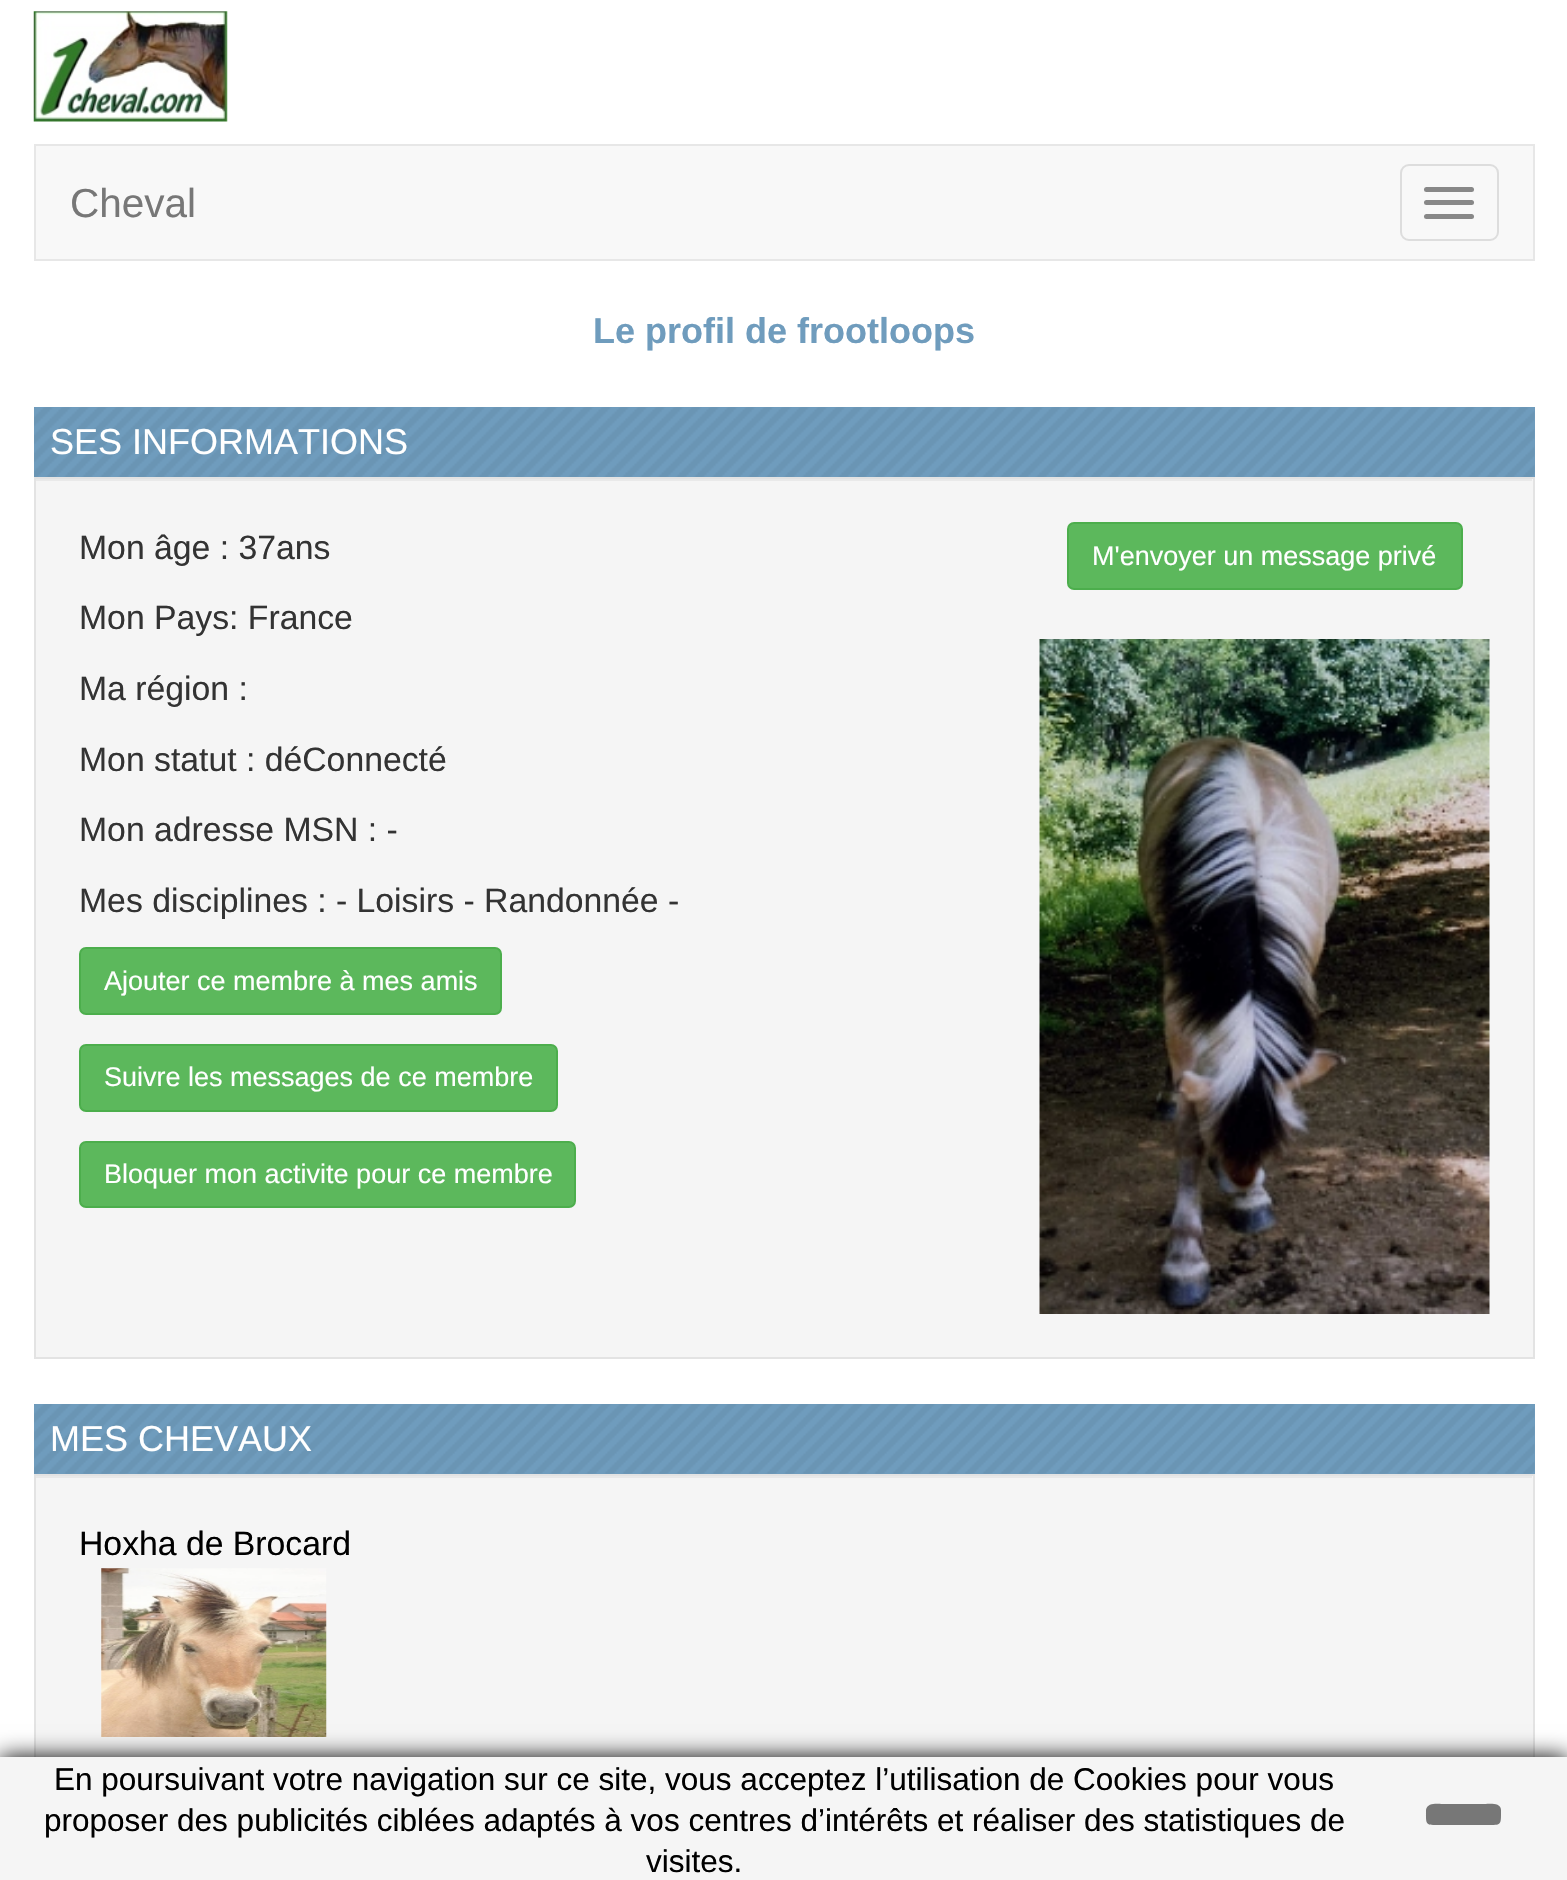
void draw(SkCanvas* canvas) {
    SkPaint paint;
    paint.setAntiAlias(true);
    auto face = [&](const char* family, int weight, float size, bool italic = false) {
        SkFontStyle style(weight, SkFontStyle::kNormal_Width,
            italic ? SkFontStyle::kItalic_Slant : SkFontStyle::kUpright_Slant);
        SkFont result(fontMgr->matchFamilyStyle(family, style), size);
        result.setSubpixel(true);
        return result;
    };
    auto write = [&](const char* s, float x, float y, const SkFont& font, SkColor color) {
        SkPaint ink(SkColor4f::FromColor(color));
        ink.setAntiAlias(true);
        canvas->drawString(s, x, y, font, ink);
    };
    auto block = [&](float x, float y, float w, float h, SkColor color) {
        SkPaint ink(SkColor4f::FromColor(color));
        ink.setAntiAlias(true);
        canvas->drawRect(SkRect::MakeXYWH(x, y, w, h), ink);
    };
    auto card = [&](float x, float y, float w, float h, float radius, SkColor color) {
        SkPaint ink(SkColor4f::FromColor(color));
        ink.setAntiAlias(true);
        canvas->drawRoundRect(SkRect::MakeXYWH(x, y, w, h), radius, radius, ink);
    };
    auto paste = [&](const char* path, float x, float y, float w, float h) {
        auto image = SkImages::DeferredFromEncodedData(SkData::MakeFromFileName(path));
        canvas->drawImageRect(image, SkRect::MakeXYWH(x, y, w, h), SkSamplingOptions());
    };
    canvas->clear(SK_ColorWHITE);
    paste("pic1.png", 33, 11, 195, 111);
    paint.setColor(SkColorSetRGB(248, 248, 248));
    canvas->drawRect(SkRect::MakeXYWH(35, 145, 1499, 115), paint);
    paint.setStyle(SkPaint::kStroke_Style);
    paint.setStrokeWidth(2);
    paint.setColor(SkColorSetRGB(231, 231, 231));
    canvas->drawRect(SkRect::MakeXYWH(35, 145, 1499, 115), paint);
    auto kFont1 = face("Liberation Sans", 400, 40.5f);
    write("Cheval", 70, 217, kFont1, SkColorSetRGB(119, 119, 119));
    paint.setColor(SkColorSetRGB(221, 221, 221));
    canvas->drawRoundRect(SkRect::MakeXYWH(1401, 165, 97, 75), 8, 8, paint);
    card(1424, 187, 50, 5, 2.5f, SkColorSetRGB(136, 136, 136));
    card(1424, 200, 50, 5, 2.5f, SkColorSetRGB(136, 136, 136));
    card(1424, 214, 50, 5, 2.5f, SkColorSetRGB(136, 136, 136));
    auto kFont2 = face("Liberation Sans", 700, 36);
    write("Le profil de frootloops", 593, 343, kFont2, SkColorSetRGB(111, 156, 189));
    block(34, 407, 1501, 70, SkColorSetRGB(111, 156, 189));
    paste("pic2.png", 34, 407, 1501, 70);
    auto kFont3 = face("Liberation Sans", 400, 36);
    write("SES INFORMATIONS", 50, 454, kFont3, SK_ColorWHITE);
    block(36, 479, 1497, 878, SkColorSetRGB(245, 245, 245));
    block(36, 479, 1496, 2, SkColorSetRGB(233, 233, 233));
    paint.setColor(SkColorSetRGB(227, 227, 227));
    canvas->drawRect(SkRect::MakeXYWH(35, 478, 1499, 880), paint);
    auto kFont4 = face("Liberation Sans", 400, 33.75f);
    write("Mon âge : 37ans", 79, 559, kFont4, SkColorSetRGB(51, 51, 51));
    write("Mon Pays: France", 79, 629, kFont4, SkColorSetRGB(51, 51, 51));
    write("Ma région :", 79, 700, kFont4, SkColorSetRGB(51, 51, 51));
    write("Mon statut : déConnecté", 79, 771, kFont4, SkColorSetRGB(51, 51, 51));
    write("Mon adresse MSN : -", 79, 841, kFont4, SkColorSetRGB(51, 51, 51));
    write("Mes disciplines : - Loisirs - Randonnée -", 79, 912, kFont4, SkColorSetRGB(51, 51, 51));
    paint.setStyle(SkPaint::kFill_Style);
    paint.setColor(SkColorSetRGB(92, 184, 92));
    canvas->drawRoundRect(SkRect::MakeXYWH(80, 948, 421, 66), 6, 6, paint);
    paint.setStyle(SkPaint::kStroke_Style);
    paint.setColor(SkColorSetRGB(76, 174, 76));
    canvas->drawRoundRect(SkRect::MakeXYWH(80, 948, 421, 66), 6, 6, paint);
    auto kFont5 = face("Liberation Sans", 400, 27);
    write("Ajouter ce membre à mes amis", 104, 990, kFont5, SK_ColorWHITE);
    paint.setStyle(SkPaint::kFill_Style);
    paint.setColor(SkColorSetRGB(92, 184, 92));
    canvas->drawRoundRect(SkRect::MakeXYWH(80, 1045, 477, 66), 6, 6, paint);
    paint.setStyle(SkPaint::kStroke_Style);
    paint.setColor(SkColorSetRGB(76, 174, 76));
    canvas->drawRoundRect(SkRect::MakeXYWH(80, 1045, 477, 66), 6, 6, paint);
    write("Suivre les messages de ce membre", 104, 1086, kFont5, SK_ColorWHITE);
    paint.setStyle(SkPaint::kFill_Style);
    paint.setColor(SkColorSetRGB(92, 184, 92));
    canvas->drawRoundRect(SkRect::MakeXYWH(80, 1142, 495, 65), 6, 6, paint);
    paint.setStyle(SkPaint::kStroke_Style);
    paint.setColor(SkColorSetRGB(76, 174, 76));
    canvas->drawRoundRect(SkRect::MakeXYWH(80, 1142, 495, 65), 6, 6, paint);
    write("Bloquer mon activite pour ce membre", 104, 1183, kFont5, SK_ColorWHITE);
    paint.setStyle(SkPaint::kFill_Style);
    paint.setColor(SkColorSetRGB(92, 184, 92));
    canvas->drawRoundRect(SkRect::MakeXYWH(1068, 523, 394, 66), 6, 6, paint);
    paint.setStyle(SkPaint::kStroke_Style);
    paint.setColor(SkColorSetRGB(76, 174, 76));
    canvas->drawRoundRect(SkRect::MakeXYWH(1068, 523, 394, 66), 6, 6, paint);
    write("M'envoyer un message privé", 1092, 565, kFont5, SK_ColorWHITE);
    paste("pic3.png", 1039, 639, 451, 675);
    block(34, 1404, 1501, 70, SkColorSetRGB(111, 156, 189));
    paste("pic4.png", 34, 1404, 1501, 70);
    write("MES CHEVAUX", 50, 1451, kFont3, SK_ColorWHITE);
    block(36, 1476, 1497, 281, SkColorSetRGB(245, 245, 245));
    block(36, 1476, 1496, 2, SkColorSetRGB(233, 233, 233));
    paint.setColor(SkColorSetRGB(227, 227, 227));
    canvas->drawRect(SkRect::MakeXYWH(35, 1475, 1499, 306), paint);
    write("Hoxha de Brocard", 79, 1555, kFont4, SK_ColorBLACK);
    paste("pic5.png", 101, 1568, 226, 169);
    paint.setStyle(SkPaint::kFill_Style);
    paint.setColor(SK_ColorBLACK);
    paint.setMaskFilter(SkMaskFilter::MakeBlur(kNormal_SkBlurStyle, 11));
    canvas->drawRect(SkRect::MakeXYWH(0, 1757, 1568, 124), paint);
    paint.setMaskFilter(nullptr);
    block(0, 1757, 1567, 123, SkColorSetRGB(245, 245, 245));
    auto kFont6 = face("Liberation Sans", 400, 31.5f);
    write("En poursuivant votre navigation sur ce site, vous acceptez l’utilisation de Cookies pour vous", 54, 1790, kFont6, SK_ColorBLACK);
    write("proposer des publicités ciblées adaptés à vos centres d’intérêts et réaliser des statistiques de", 44, 1831, kFont6, SK_ColorBLACK);
    write("visites.", 646, 1872, kFont6, SK_ColorBLACK);
    paint.setColor(SkColorSetRGB(119, 119, 119));
    canvas->drawPath(SkPathBuilder().moveTo(1501, 1810).cubicTo(1501, 1826, 1502, 1825, 1485, 1825).lineTo(1442, 1825).cubicTo(1425, 1825, 1426, 1826, 1426, 1810).cubicTo(1427, 1802, 1439, 1804, 1442, 1804).lineTo(1485, 1804).cubicTo(1488, 1804, 1501, 1802, 1501, 1810).close().detach(), paint);
}
